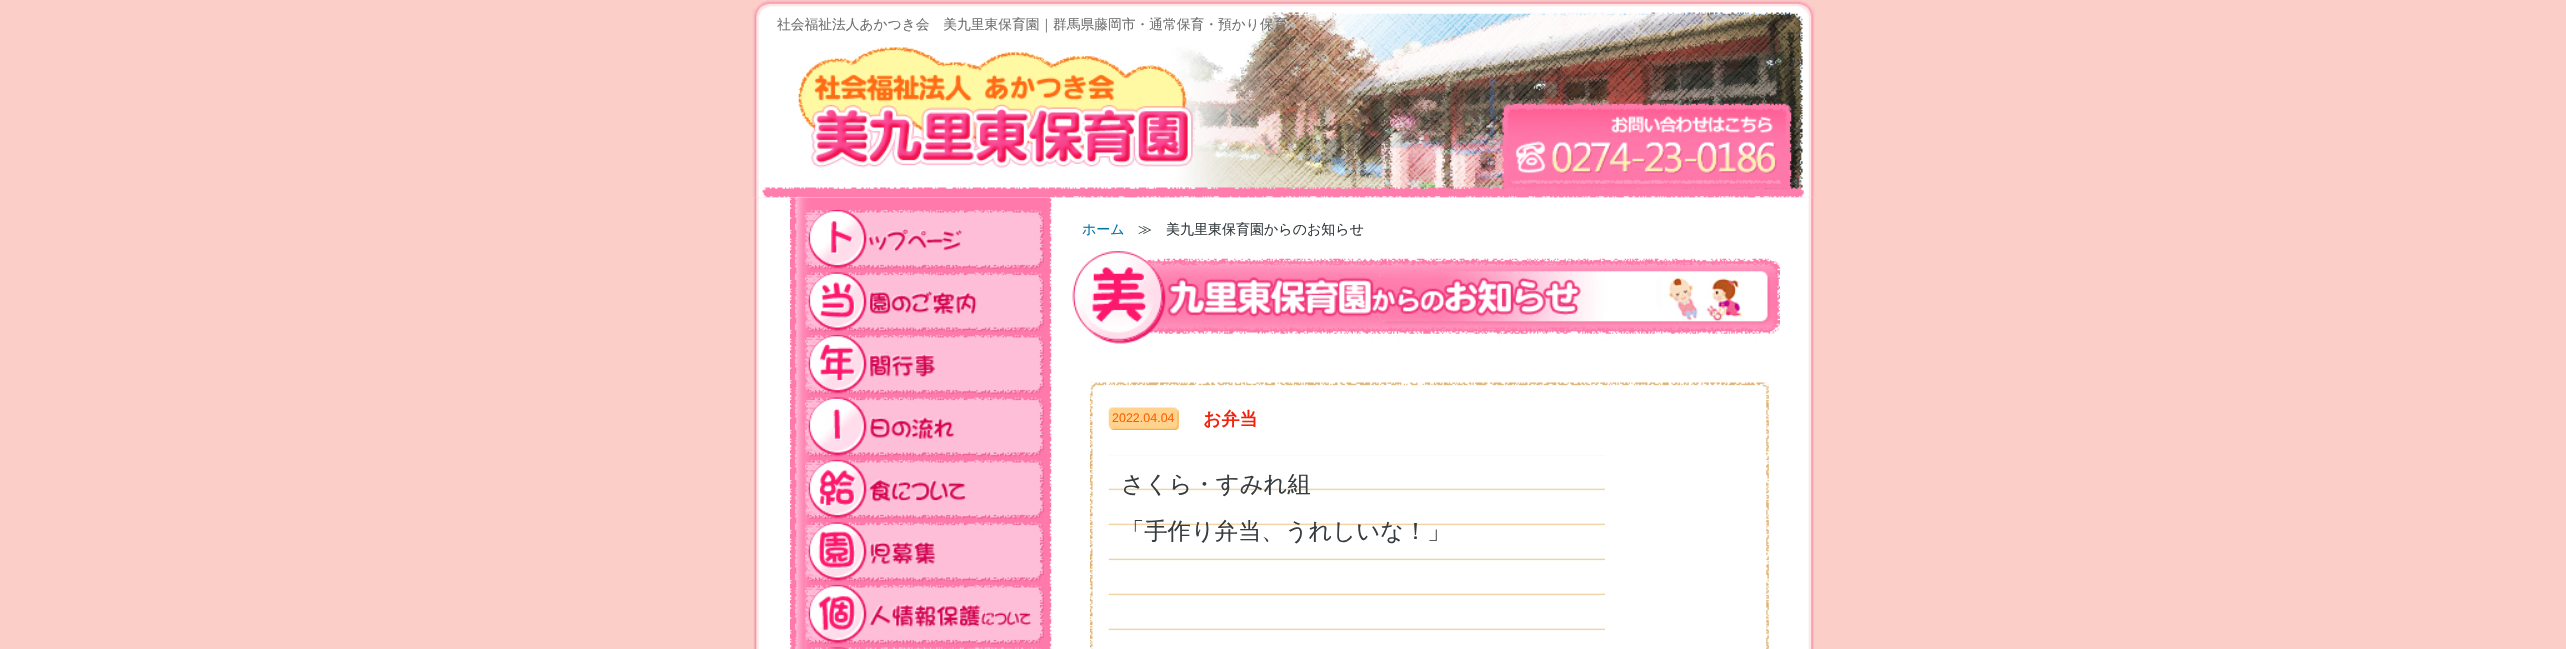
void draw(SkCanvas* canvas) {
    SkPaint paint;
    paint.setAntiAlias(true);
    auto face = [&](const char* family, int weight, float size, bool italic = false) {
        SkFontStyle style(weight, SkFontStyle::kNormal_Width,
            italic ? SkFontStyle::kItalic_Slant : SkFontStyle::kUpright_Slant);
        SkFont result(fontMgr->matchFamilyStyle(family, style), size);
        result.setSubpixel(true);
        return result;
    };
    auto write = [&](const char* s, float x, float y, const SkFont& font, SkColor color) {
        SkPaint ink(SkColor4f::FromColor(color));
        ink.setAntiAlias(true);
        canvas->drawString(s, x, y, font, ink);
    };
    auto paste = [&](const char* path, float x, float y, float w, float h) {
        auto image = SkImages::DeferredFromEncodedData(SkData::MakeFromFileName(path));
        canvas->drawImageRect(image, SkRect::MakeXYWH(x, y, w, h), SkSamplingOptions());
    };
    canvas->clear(SkColorSetRGB(252, 206, 200));
    paste("pic1.png", 752, 0, 1063, 198);
    paste("pic2.png", 1156, 12, 647, 177);
    auto kFont1 = face("WenQuanYi Zen Hei", 500, 13.75f);
    write("社会福祉法人あかつき会　美九里東保育園｜群馬県藤岡市・通常保育・預かり保育", 777, 29, kFont1, SkColorSetRGB(112, 112, 112));
    paste("pic3.png", 798, 47, 395, 121);
    paste("pic4.png", 1502, 103, 290, 86);
    paste("pic5.png", 753, 197, 1061, 452);
    paste("pic6.png", 790, 197, 262, 452);
    paste("pic7.png", 805, 210, 239, 439);
    auto kFont2 = face("WenQuanYi Zen Hei", 500, 14);
    write("ホーム", 1082, 234, kFont2, SkColorSetRGB(4, 115, 162));
    write("≫　美九里東保育園からのお知らせ", 1138, 234, kFont2, SkColorSetRGB(54, 60, 64));
    paste("pic8.png", 1072, 251, 708, 93);
    paste("pic9.png", 1090, 382, 679, 267);
    paste("pic10.png", 1090, 382, 679, 7);
    paste("pic11.png", 1108, 407, 71, 23);
    auto kFont3 = face("Liberation Sans", 400, 12.5f);
    write("2022.04.04", 1112, 422, kFont3, SkColorSetRGB(255, 95, 0));
    auto kFont4 = face("WenQuanYi Zen Hei", 700, 18);
    write("お弁当", 1203, 425, kFont4, SkColorSetRGB(240, 35, 14));
    paste("pic12.png", 1108, 455, 497, 176);
    auto kFont5 = face("WenQuanYi Zen Hei", 500, 23.3f);
    write("さくら・すみれ組", 1121, 492, kFont5, SkColorSetRGB(54, 60, 64));
    write("「手作り弁当、うれしいな！」", 1121, 539, kFont5, SkColorSetRGB(54, 60, 64));
}
